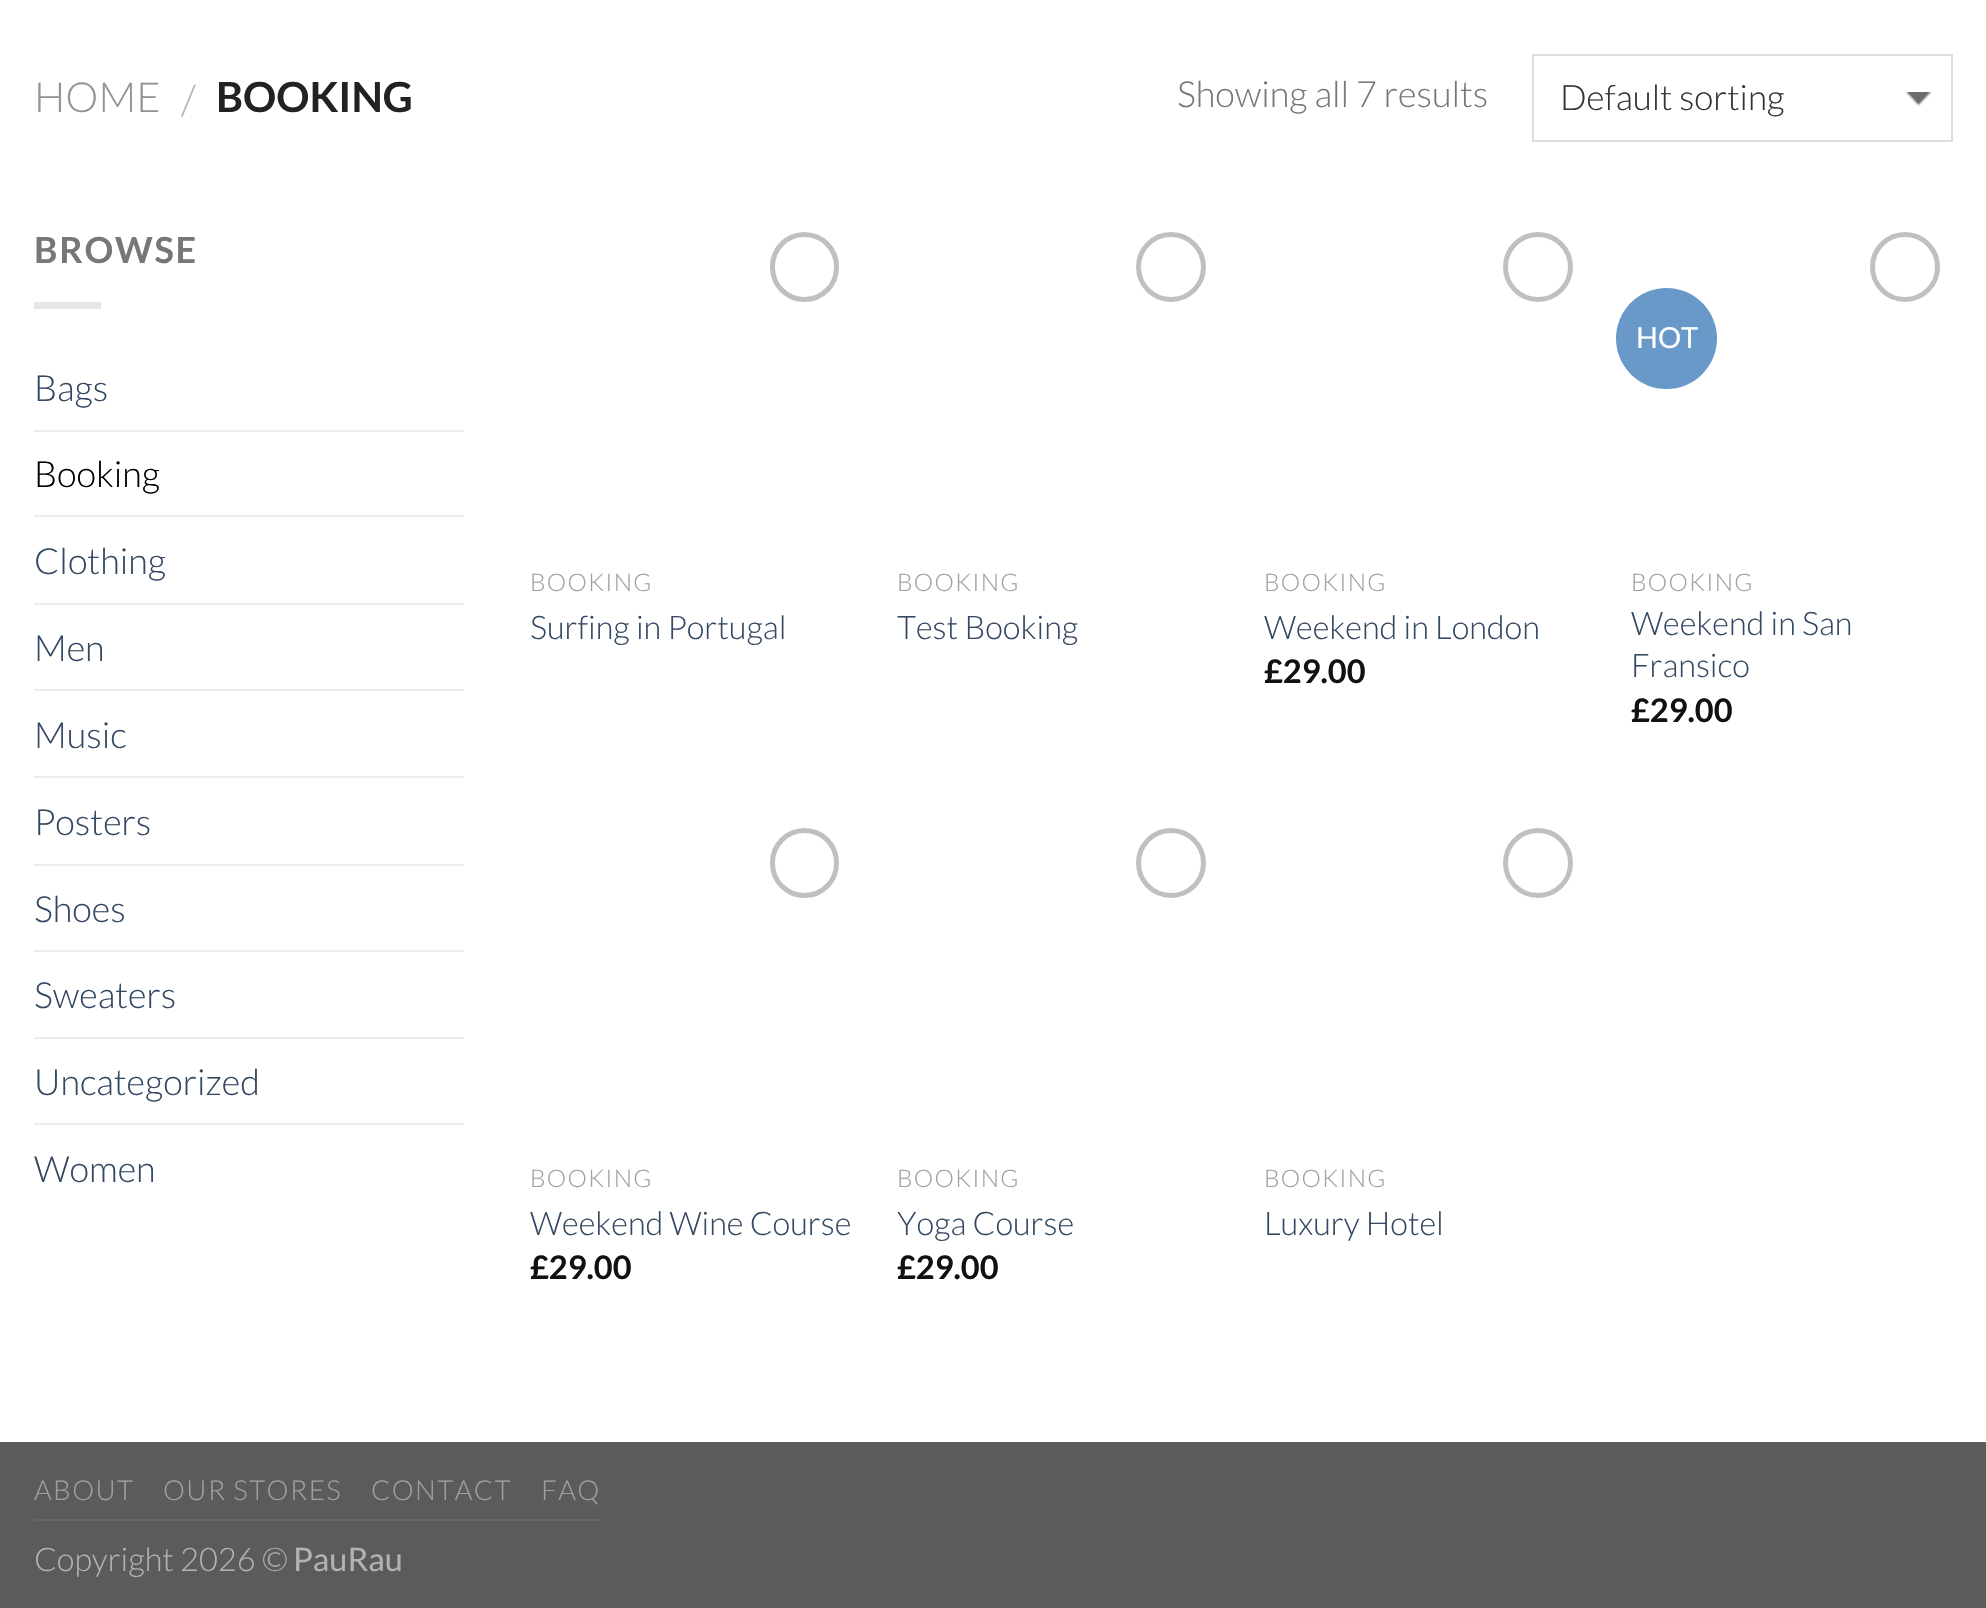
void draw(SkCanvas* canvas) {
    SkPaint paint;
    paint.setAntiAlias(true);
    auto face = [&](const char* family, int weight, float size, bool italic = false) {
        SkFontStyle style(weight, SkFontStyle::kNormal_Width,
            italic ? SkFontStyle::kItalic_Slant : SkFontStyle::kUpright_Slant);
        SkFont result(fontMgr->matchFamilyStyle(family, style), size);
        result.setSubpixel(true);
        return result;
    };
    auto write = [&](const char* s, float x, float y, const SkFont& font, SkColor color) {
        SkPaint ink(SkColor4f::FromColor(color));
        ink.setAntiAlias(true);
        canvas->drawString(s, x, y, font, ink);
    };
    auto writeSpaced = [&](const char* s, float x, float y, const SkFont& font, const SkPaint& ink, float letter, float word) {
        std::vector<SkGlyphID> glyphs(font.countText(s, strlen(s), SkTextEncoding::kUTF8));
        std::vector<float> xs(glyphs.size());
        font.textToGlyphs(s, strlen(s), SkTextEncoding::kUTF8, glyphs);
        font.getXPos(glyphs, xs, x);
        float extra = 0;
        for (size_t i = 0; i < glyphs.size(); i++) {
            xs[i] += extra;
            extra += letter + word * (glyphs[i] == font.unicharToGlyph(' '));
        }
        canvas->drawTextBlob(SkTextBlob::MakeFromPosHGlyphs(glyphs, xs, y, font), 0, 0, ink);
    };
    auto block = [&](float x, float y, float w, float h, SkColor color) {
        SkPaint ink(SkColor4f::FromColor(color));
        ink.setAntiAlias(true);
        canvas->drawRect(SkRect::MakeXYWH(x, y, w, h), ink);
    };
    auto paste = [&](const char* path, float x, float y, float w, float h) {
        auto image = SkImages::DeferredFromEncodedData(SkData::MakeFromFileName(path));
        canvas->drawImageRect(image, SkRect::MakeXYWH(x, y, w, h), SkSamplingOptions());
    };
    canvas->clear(SK_ColorWHITE);
    auto kFont1 = face("Lato", 300, 41.5f);
    write("HOME", 34, 112, kFont1, SkColorSetRGB(148, 148, 148));
    write("/", 181, 115, kFont1, SkColorSetRGB(178, 178, 178));
    auto kFont2 = face("Lato", 700, 41.5f);
    write("BOOKING", 216, 112, kFont2, SkColorSetRGB(34, 34, 34));
    auto kFont3 = face("Lato", 300, 36);
    write("Showing all 7 results", 1177, 107, kFont3, SkColorSetRGB(119, 119, 119));
    paste("pic1.png", 1905, 92, 27, 14);
    paint.setStyle(SkPaint::kStroke_Style);
    paint.setStrokeWidth(2);
    paint.setColor(SkColorSetRGB(221, 221, 221));
    canvas->drawRect(SkRect::MakeXYWH(1533, 55, 419, 86), paint);
    auto kFont4 = face("Lato", 300, 35);
    write("Default sorting", 1560, 110, kFont4, SkColorSetRGB(51, 51, 51));
    auto kFont5 = face("Lato", 700, 36);
    paint.setStyle(SkPaint::kFill_Style);
    paint.setColor(SkColorSetRGB(119, 119, 119));
    writeSpaced("BROWSE", 34, 263, kFont5, paint, 1.75f, 0);
    block(34, 302, 67, 7, SkColorSetRGB(230, 230, 230));
    write("Bags", 34, 401, kFont3, SkColorSetRGB(51, 72, 98));
    block(34, 430, 430, 2, SkColorSetRGB(236, 236, 236));
    write("Booking", 34, 487, kFont3, SK_ColorBLACK);
    block(34, 515, 430, 2, SkColorSetRGB(236, 236, 236));
    write("Clothing", 34, 574, kFont3, SkColorSetRGB(51, 72, 98));
    block(34, 603, 430, 2, SkColorSetRGB(236, 236, 236));
    write("Men", 34, 661, kFont3, SkColorSetRGB(51, 72, 98));
    block(34, 689, 430, 2, SkColorSetRGB(236, 236, 236));
    write("Music", 34, 748, kFont3, SkColorSetRGB(51, 72, 98));
    block(34, 776, 430, 2, SkColorSetRGB(236, 236, 236));
    write("Posters", 34, 835, kFont3, SkColorSetRGB(51, 72, 98));
    block(34, 864, 430, 2, SkColorSetRGB(236, 236, 236));
    write("Shoes", 34, 922, kFont3, SkColorSetRGB(51, 72, 98));
    block(34, 950, 430, 2, SkColorSetRGB(236, 236, 236));
    write("Sweaters", 34, 1008, kFont3, SkColorSetRGB(51, 72, 98));
    block(34, 1037, 430, 2, SkColorSetRGB(236, 236, 236));
    write("Uncategorized", 34, 1095, kFont3, SkColorSetRGB(51, 72, 98));
    block(34, 1123, 430, 2, SkColorSetRGB(236, 236, 236));
    write("Women", 34, 1182, kFont3, SkColorSetRGB(51, 72, 98));
    paint.setStyle(SkPaint::kStroke_Style);
    paint.setStrokeWidth(5);
    paint.setColor(SkColorSetRGB(192, 192, 192));
    canvas->drawRoundRect(SkRect::MakeXYWH(772.5f, 234.5f, 64, 65), 32, 32, paint);
    auto kFont6 = face("Lato", 300, 24.25f);
    paint.setStyle(SkPaint::kFill_Style);
    paint.setColor(SkColorSetRGB(160, 160, 160));
    writeSpaced("BOOKING", 530, 591, kFont6, paint, 1.25f, 0);
    auto kFont7 = face("Lato", 300, 32.5f);
    write("Surfing in Portugal", 530, 639, kFont7, SkColorSetRGB(51, 72, 98));
    paint.setStyle(SkPaint::kStroke_Style);
    paint.setColor(SkColorSetRGB(192, 192, 192));
    canvas->drawCircle(1171, 267, 32.5f, paint);
    paint.setStyle(SkPaint::kFill_Style);
    paint.setColor(SkColorSetRGB(160, 160, 160));
    writeSpaced("BOOKING", 897, 591, kFont6, paint, 1.25f, 0);
    write("Test Booking", 897, 639, kFont7, SkColorSetRGB(51, 72, 98));
    paint.setStyle(SkPaint::kStroke_Style);
    paint.setColor(SkColorSetRGB(192, 192, 192));
    canvas->drawCircle(1538, 267, 32.5f, paint);
    paint.setStyle(SkPaint::kFill_Style);
    paint.setColor(SkColorSetRGB(160, 160, 160));
    writeSpaced("BOOKING", 1264, 591, kFont6, paint, 1.25f, 0);
    write("Weekend in London", 1264, 639, kFont7, SkColorSetRGB(51, 72, 98));
    auto kFont8 = face("Lato", 700, 32.5f);
    write("£29.00", 1264, 683, kFont8, SkColorSetRGB(17, 17, 17));
    paint.setColor(SkColorSetRGB(104, 153, 201));
    canvas->drawCircle(1666.5f, 338.5f, 50.5f, paint);
    auto kFont9 = face("Lato", 400, 29);
    write("HOT", 1636, 348, kFont9, SK_ColorWHITE);
    paint.setStyle(SkPaint::kStroke_Style);
    paint.setColor(SkColorSetRGB(192, 192, 192));
    canvas->drawCircle(1905, 267, 32.5f, paint);
    paint.setStyle(SkPaint::kFill_Style);
    paint.setColor(SkColorSetRGB(160, 160, 160));
    writeSpaced("BOOKING", 1631, 591, kFont6, paint, 1.25f, 0);
    write("Weekend in San", 1631, 635, kFont7, SkColorSetRGB(51, 72, 98));
    write("Fransico", 1631, 677, kFont7, SkColorSetRGB(51, 72, 98));
    write("£29.00", 1631, 722, kFont8, SkColorSetRGB(17, 17, 17));
    paint.setStyle(SkPaint::kStroke_Style);
    paint.setColor(SkColorSetRGB(192, 192, 192));
    canvas->drawRoundRect(SkRect::MakeXYWH(772.5f, 830.5f, 64, 65), 32, 32, paint);
    paint.setStyle(SkPaint::kFill_Style);
    paint.setColor(SkColorSetRGB(160, 160, 160));
    writeSpaced("BOOKING", 530, 1187, kFont6, paint, 1.25f, 0);
    write("Weekend Wine Course", 530, 1235, kFont7, SkColorSetRGB(51, 72, 98));
    write("£29.00", 530, 1279, kFont8, SkColorSetRGB(17, 17, 17));
    paint.setStyle(SkPaint::kStroke_Style);
    paint.setColor(SkColorSetRGB(192, 192, 192));
    canvas->drawCircle(1171, 863, 32.5f, paint);
    paint.setStyle(SkPaint::kFill_Style);
    paint.setColor(SkColorSetRGB(160, 160, 160));
    writeSpaced("BOOKING", 897, 1187, kFont6, paint, 1.25f, 0);
    write("Yoga Course", 897, 1235, kFont7, SkColorSetRGB(51, 72, 98));
    write("£29.00", 897, 1279, kFont8, SkColorSetRGB(17, 17, 17));
    paint.setStyle(SkPaint::kStroke_Style);
    paint.setColor(SkColorSetRGB(192, 192, 192));
    canvas->drawCircle(1538, 863, 32.5f, paint);
    paint.setStyle(SkPaint::kFill_Style);
    paint.setColor(SkColorSetRGB(160, 160, 160));
    writeSpaced("BOOKING", 1264, 1187, kFont6, paint, 1.25f, 0);
    write("Luxury Hotel", 1264, 1235, kFont7, SkColorSetRGB(51, 72, 98));
    block(0, 1442, 1986, 166, SkColorSetRGB(91, 91, 91));
    block(34, 1519, 567, 2, SkColorSetRGB(101, 101, 101));
    auto kFont10 = face("Lato", 300, 27.5f);
    writeSpaced("ABOUT", 34, 1500, kFont10, paint, 1.4f, 0);
    writeSpaced("OUR STORES", 163, 1500, kFont10, paint, 1.4f, 0);
    writeSpaced("CONTACT", 371, 1500, kFont10, paint, 1.4f, 0);
    writeSpaced("FAQ", 541, 1500, kFont10, paint, 1.4f, 0);
    write("Copyright 2026 ©", 34, 1571, kFont7, SkColorSetRGB(178, 178, 178));
    auto kFont11 = face("Lato", 400, 32.5f);
    write("PauRau", 293, 1571, kFont11, SkColorSetRGB(178, 178, 178));
}
